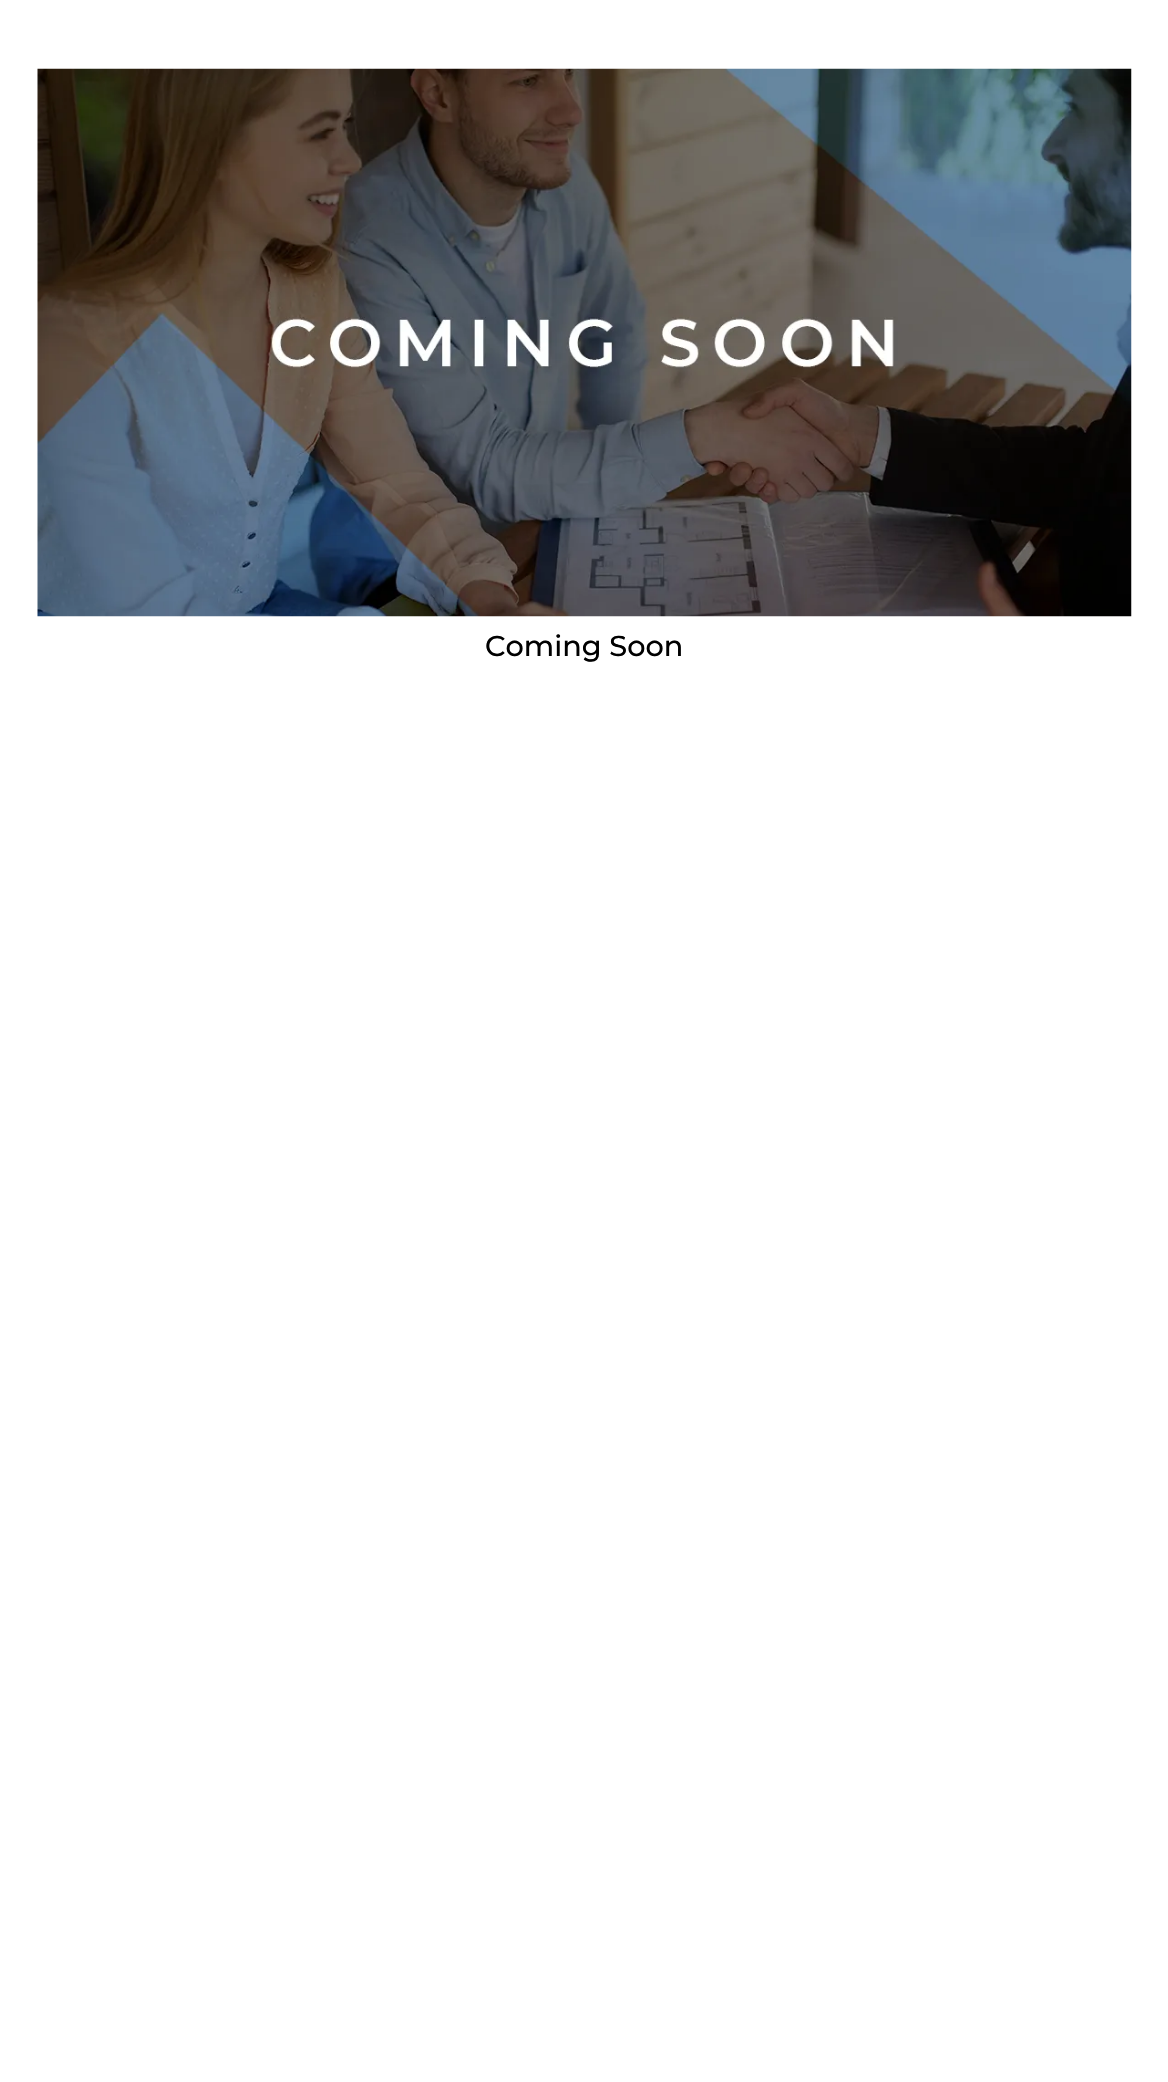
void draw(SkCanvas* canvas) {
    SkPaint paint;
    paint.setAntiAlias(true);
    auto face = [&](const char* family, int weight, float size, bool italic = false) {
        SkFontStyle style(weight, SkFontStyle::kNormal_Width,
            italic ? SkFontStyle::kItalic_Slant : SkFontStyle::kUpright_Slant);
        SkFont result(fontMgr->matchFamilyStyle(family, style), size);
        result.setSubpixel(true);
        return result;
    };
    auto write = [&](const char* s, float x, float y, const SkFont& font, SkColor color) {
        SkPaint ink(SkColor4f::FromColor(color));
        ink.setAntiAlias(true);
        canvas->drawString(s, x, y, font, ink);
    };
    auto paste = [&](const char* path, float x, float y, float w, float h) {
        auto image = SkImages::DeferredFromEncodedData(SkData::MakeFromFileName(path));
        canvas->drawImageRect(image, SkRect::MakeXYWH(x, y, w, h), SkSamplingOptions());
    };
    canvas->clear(SK_ColorWHITE);
    paste("pic1.png", 37, 68, 1095, 549);
    auto kFont1 = face("Montserrat", 500, 28.75f);
    write("Coming Soon", 485, 656, kFont1, SK_ColorBLACK);
}
